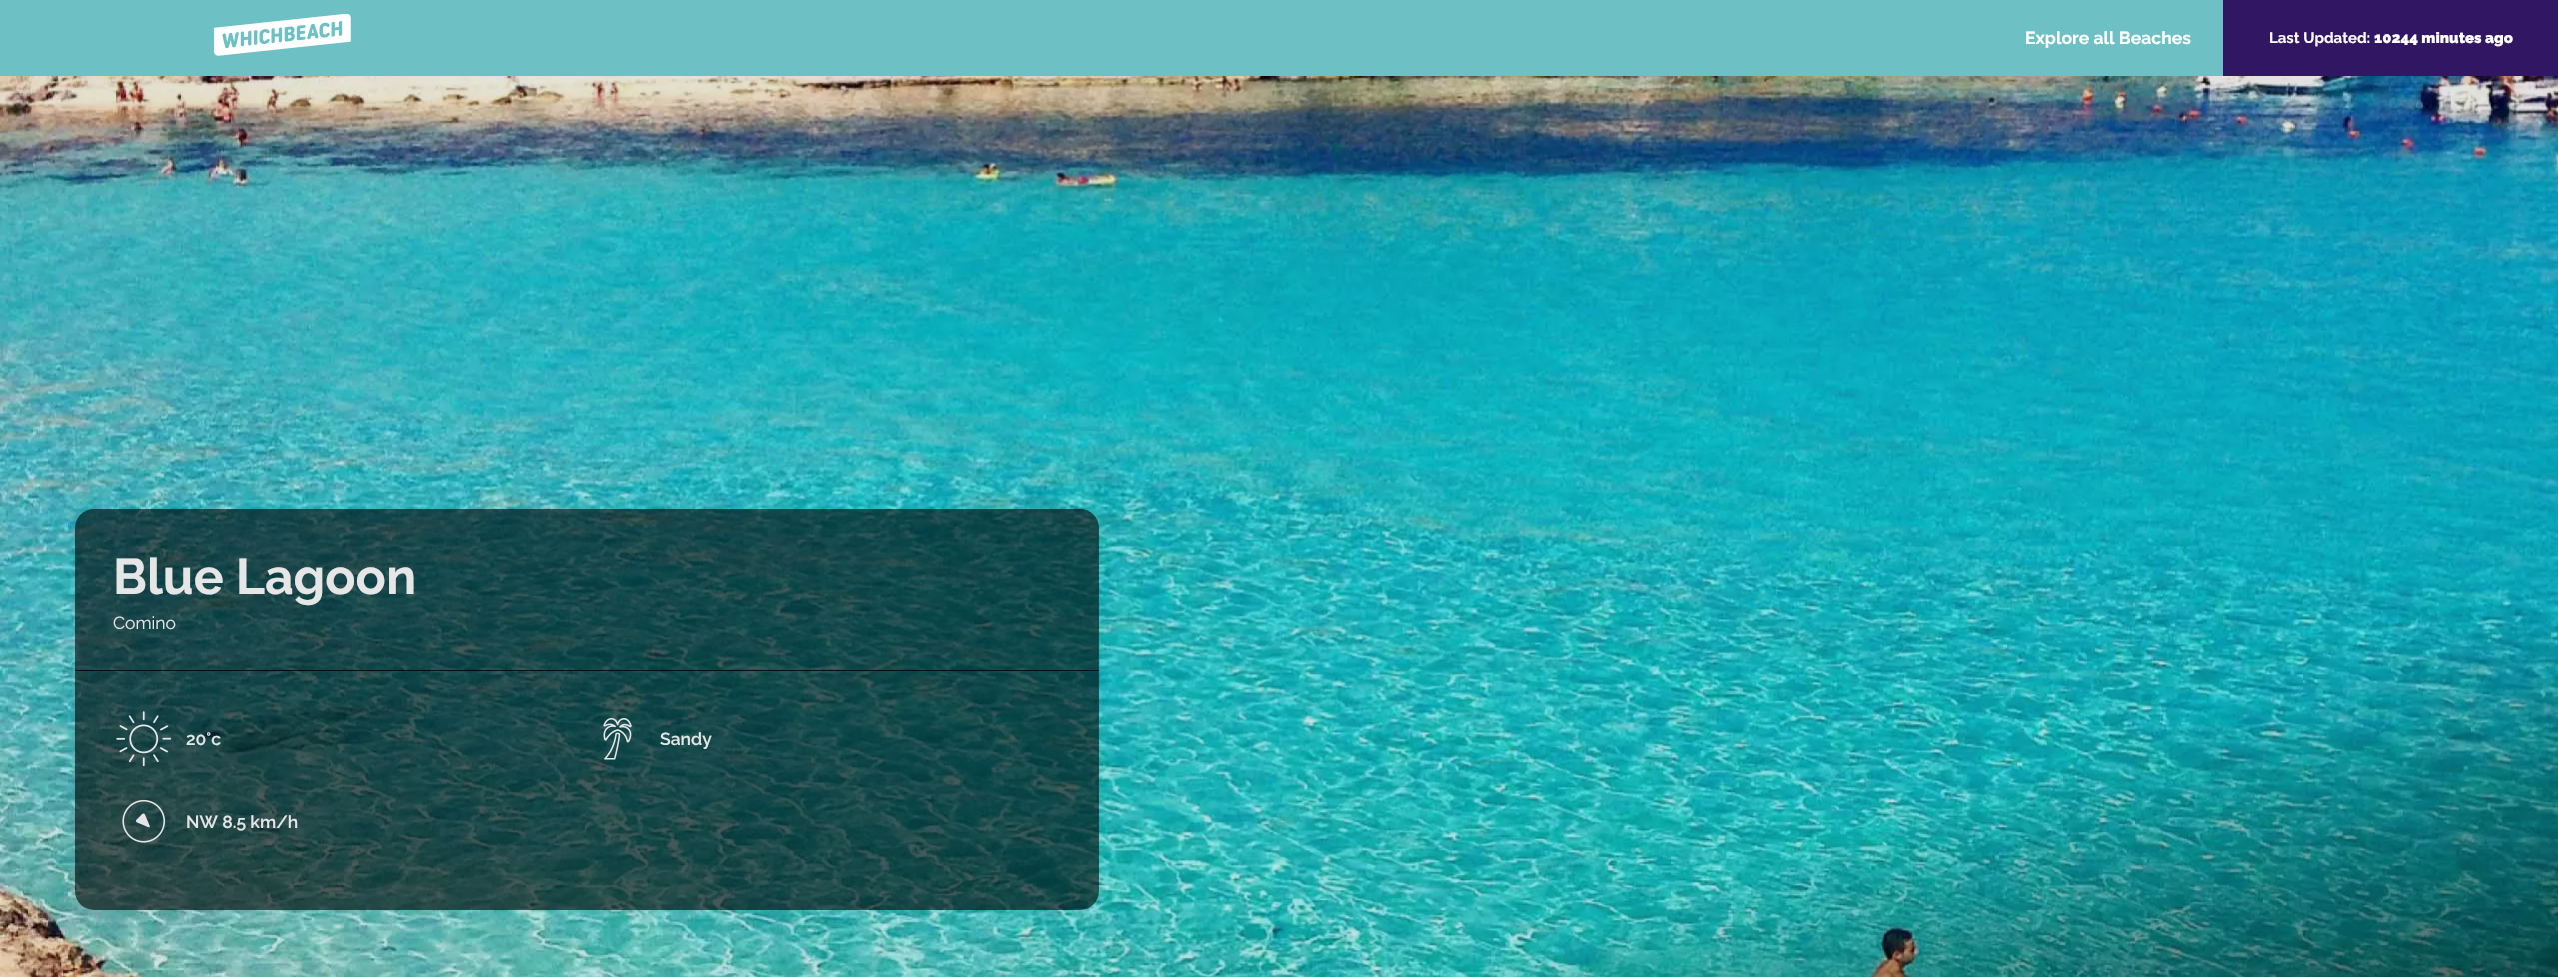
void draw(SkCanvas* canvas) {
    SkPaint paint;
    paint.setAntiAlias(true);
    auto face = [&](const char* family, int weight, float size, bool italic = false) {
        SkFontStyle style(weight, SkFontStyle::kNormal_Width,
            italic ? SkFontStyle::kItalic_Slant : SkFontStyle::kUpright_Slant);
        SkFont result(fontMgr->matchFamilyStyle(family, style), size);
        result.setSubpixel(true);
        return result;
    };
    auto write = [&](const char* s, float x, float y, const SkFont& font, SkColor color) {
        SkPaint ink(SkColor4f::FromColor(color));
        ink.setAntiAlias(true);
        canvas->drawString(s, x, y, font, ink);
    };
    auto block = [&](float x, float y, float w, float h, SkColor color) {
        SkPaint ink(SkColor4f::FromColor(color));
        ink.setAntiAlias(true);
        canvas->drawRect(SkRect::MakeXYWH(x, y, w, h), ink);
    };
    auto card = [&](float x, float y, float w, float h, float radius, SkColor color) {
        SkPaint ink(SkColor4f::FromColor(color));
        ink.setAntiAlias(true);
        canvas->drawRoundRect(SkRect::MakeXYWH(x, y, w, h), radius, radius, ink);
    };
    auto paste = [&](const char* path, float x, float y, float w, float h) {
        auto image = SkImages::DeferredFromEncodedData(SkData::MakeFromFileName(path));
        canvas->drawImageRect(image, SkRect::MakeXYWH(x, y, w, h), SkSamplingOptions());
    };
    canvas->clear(SkColorSetRGB(109, 192, 196));
    paste("pic1.png", 214, 14, 137, 42);
    auto kFont1 = face("Raleway", 700, 17.5f);
    write("Explore all Beaches", 2025, 44, kFont1, SK_ColorWHITE);
    block(2223, 0, 335, 76, SkColorSetRGB(49, 22, 100));
    auto kFont2 = face("Raleway", 700, 15);
    write("Last Updated:", 2269, 43, kFont2, SK_ColorWHITE);
    auto kFont3 = face("Raleway", 900, 15);
    write("10244 minutes ago", 2374, 43, kFont3, SK_ColorWHITE);
    paste("pic2.png", 0, 76, 2558, 901);
    card(75, 509, 1024, 401, 19, SkColorSetARGB(153, 0, 0, 0));
    auto kFont4 = face("Raleway", 700, 50);
    write("Blue Lagoon", 113, 594, kFont4, SkColorSetRGB(230, 230, 230));
    auto kFont5 = face("Raleway", 400, 17.5f);
    write("Comino", 113, 629, kFont5, SkColorSetRGB(230, 230, 230));
    block(75, 670, 1024, 1, SkColorSetARGB(204, 0, 0, 0));
    paste("pic3.png", 116, 711, 56, 56);
    auto kFont6 = face("Raleway", 600, 17.5f);
    write("20°c", 186, 745, kFont6, SkColorSetRGB(230, 230, 230));
    paste("pic4.png", 603, 718, 29, 42);
    write("Sandy", 660, 745, kFont6, SkColorSetRGB(230, 230, 230));
    paste("pic5.png", 122, 799, 44, 44);
    write("NW 8.5 km/h", 186, 828, kFont6, SkColorSetRGB(230, 230, 230));
    {
        const SkColor colors[] = {SkColorSetARGB(0, 0, 0, 0), SkColorSetARGB(153, 0, 0, 0)};
        const float stops[] = {0.78f, 1};
        const SkPoint ends[] = {{1002, -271}, {1557, 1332}};
        paint.setShader(SkGradientShader::MakeLinear(ends, colors, stops, 2, SkTileMode::kClamp));
        paint.setAlpha(255);
    }
    canvas->drawRect(SkRect::MakeXYWH(1484, 605, 1074, 372), paint);
}
